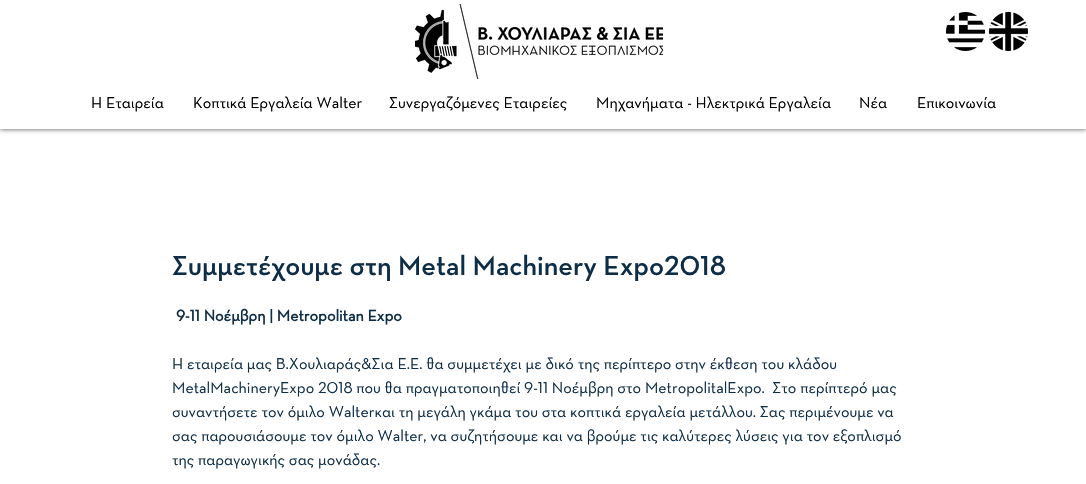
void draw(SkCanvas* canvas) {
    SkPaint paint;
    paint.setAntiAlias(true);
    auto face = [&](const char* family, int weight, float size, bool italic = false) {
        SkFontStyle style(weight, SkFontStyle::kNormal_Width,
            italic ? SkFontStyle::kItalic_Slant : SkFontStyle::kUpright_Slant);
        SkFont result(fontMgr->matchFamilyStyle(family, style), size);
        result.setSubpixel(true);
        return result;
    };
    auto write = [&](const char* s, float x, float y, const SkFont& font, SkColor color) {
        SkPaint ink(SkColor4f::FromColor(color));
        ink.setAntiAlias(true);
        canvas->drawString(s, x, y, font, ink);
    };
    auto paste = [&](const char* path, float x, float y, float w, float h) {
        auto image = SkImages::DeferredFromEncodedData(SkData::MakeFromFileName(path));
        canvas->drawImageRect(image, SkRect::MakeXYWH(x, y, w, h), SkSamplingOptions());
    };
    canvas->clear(SK_ColorWHITE);
    canvas->save();
    canvas->clipRect(SkRect::MakeXYWH(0, 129, 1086, 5));
    paint.setColor(SkColorSetARGB(179, 0, 0, 0));
    paint.setMaskFilter(SkMaskFilter::MakeBlur(kNormal_SkBlurStyle, 2.5f));
    canvas->drawRect(SkRect::MakeXYWH(0, 0, 1086, 129), paint);
    paint.setMaskFilter(nullptr);
    canvas->restore();
    paste("pic1.png", 415, 4, 248, 75);
    paste("pic2.png", 946, 12, 39, 39);
    paste("pic3.png", 989, 12, 39, 39);
    auto kFont1 = face("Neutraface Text", 400, 16);
    write("Η Εταιρεία", 91, 108, kFont1, SK_ColorBLACK);
    write("Κοπτικά Εργαλεία Walter", 193, 108, kFont1, SK_ColorBLACK);
    write("Συνεργαζόμενες Εταιρείες", 389, 108, kFont1, SK_ColorBLACK);
    write("Μηχανήματα - Ηλεκτρικά Εργαλεία", 596, 108, kFont1, SK_ColorBLACK);
    write("Νέα", 859, 108, kFont1, SK_ColorBLACK);
    write("Επικοινωνία", 917, 108, kFont1, SK_ColorBLACK);
    auto kFont2 = face("Neutraface Text", 600, 28);
    write("Συμμετέχουμε στη Metal Machinery Expo2018", 172, 275, kFont2, SkColorSetRGB(14, 46, 71));
    auto kFont3 = face("Neutraface Text", 700, 16);
    write("9-11 Νοέμβρη | Metropolitan Expo", 176, 321, kFont3, SkColorSetRGB(14, 46, 71));
    write("Η εταιρεία μας Β.Χουλιαράς&Σια Ε.Ε. θα συμμετέχει με δικό της περίπτερο στην έκθεση του κλάδου", 172, 369, kFont1, SkColorSetRGB(14, 46, 71));
    write("MetalMachineryExpo 2018 που θα πραγματοποιηθεί 9-11 Νοέμβρη στο MetropolitalExpo.  Στο περίπτερό μας", 172, 393, kFont1, SkColorSetRGB(14, 46, 71));
    write("συναντήσετε τον όμιλο Walterκαι τη μεγάλη γκάμα του στα κοπτικά εργαλεία μετάλλου. Σας περιμένουμε να", 172, 417, kFont1, SkColorSetRGB(14, 46, 71));
    write("σας παρουσιάσουμε τον όμιλο Walter, να συζητήσουμε και να βρούμε τις καλύτερες λύσεις για τον εξοπλισμό", 172, 441, kFont1, SkColorSetRGB(14, 46, 71));
    write("της παραγωγικής σας μονάδας.", 172, 465, kFont1, SkColorSetRGB(14, 46, 71));
}
